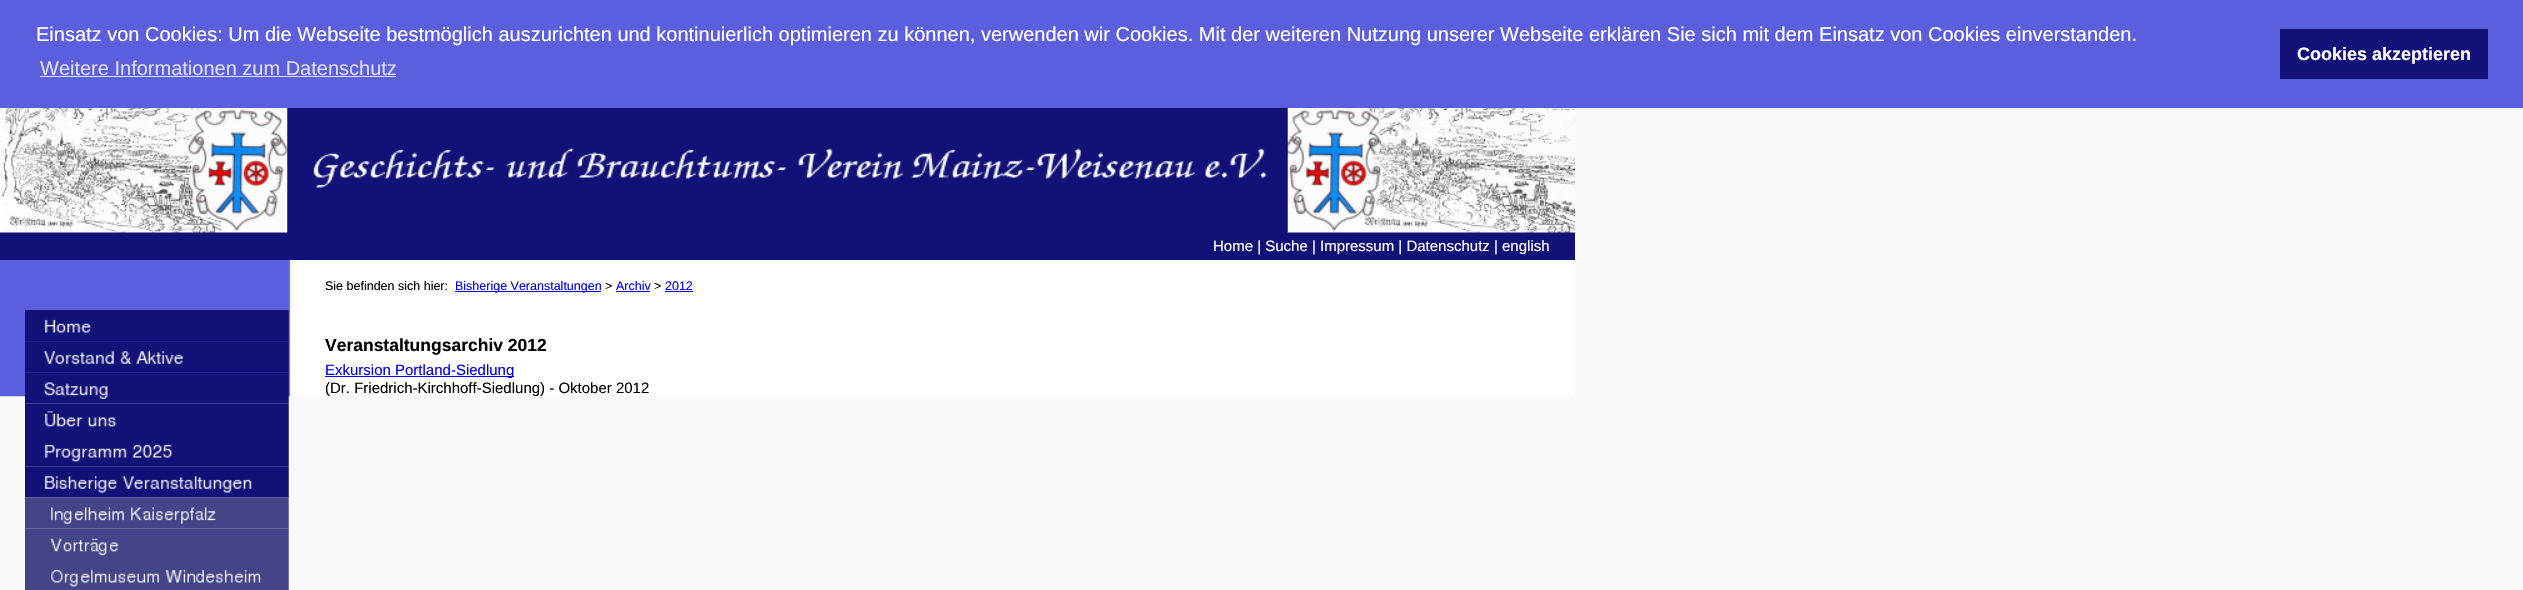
void draw(SkCanvas* canvas) {
    SkPaint paint;
    paint.setAntiAlias(true);
    auto face = [&](const char* family, int weight, float size, bool italic = false) {
        SkFontStyle style(weight, SkFontStyle::kNormal_Width,
            italic ? SkFontStyle::kItalic_Slant : SkFontStyle::kUpright_Slant);
        SkFont result(fontMgr->matchFamilyStyle(family, style), size);
        result.setSubpixel(true);
        return result;
    };
    auto write = [&](const char* s, float x, float y, const SkFont& font, SkColor color) {
        SkPaint ink(SkColor4f::FromColor(color));
        ink.setAntiAlias(true);
        canvas->drawString(s, x, y, font, ink);
    };
    auto block = [&](float x, float y, float w, float h, SkColor color) {
        SkPaint ink(SkColor4f::FromColor(color));
        ink.setAntiAlias(true);
        canvas->drawRect(SkRect::MakeXYWH(x, y, w, h), ink);
    };
    auto paste = [&](const char* path, float x, float y, float w, float h) {
        auto image = SkImages::DeferredFromEncodedData(SkData::MakeFromFileName(path));
        canvas->drawImageRect(image, SkRect::MakeXYWH(x, y, w, h), SkSamplingOptions());
    };
    canvas->clear(SkColorSetRGB(249, 249, 249));
    block(0, 0, 2523, 108, SkColorSetRGB(91, 94, 221));
    auto kFont1 = face("Liberation Sans", 400, 20);
    write("Einsatz von Cookies: Um die Webseite bestmöglich auszurichten und kontinuierlich optimieren zu können, verwenden wir Cookies. Mit der weiteren Nutzung unserer Webseite erklären Sie sich mit dem Einsatz von Cookies einverstanden.", 36, 41, kFont1, SK_ColorWHITE);
    write("Weitere Informationen zum Datenschutz", 40, 75, kFont1, SkColorSetRGB(222, 223, 248));
    block(40, 76, 356, 1, SkColorSetRGB(222, 223, 248));
    block(2280, 29, 208, 50, SkColorSetRGB(17, 17, 119));
    auto kFont2 = face("Liberation Sans", 700, 18);
    write("Cookies akzeptieren", 2297, 60, kFont2, SK_ColorWHITE);
    paste("pic1.png", 0, 260, 1575, 137);
    block(0, 108, 1575, 152, SkColorSetRGB(17, 17, 119));
    paste("pic2.png", 0, 108, 288, 125);
    paste("pic4.png", 1287, 108, 288, 125);
    paste("pic3.png", 287, 108, 1001, 125);
    auto kFont3 = face("Liberation Sans", 400, 15);
    write("Home | Suche | Impressum | Datenschutz | english", 1213, 251, kFont3, SK_ColorWHITE);
    paste("pic5.png", 25, 310, 264, 32);
    paste("pic6.png", 25, 341, 264, 32);
    paste("pic7.png", 25, 372, 264, 32);
    paste("pic8.png", 25, 403, 264, 32);
    paste("pic9.png", 25, 435, 264, 32);
    paste("pic10.png", 25, 466, 264, 32);
    paste("pic11.png", 25, 497, 264, 32);
    paste("pic12.png", 25, 528, 264, 32);
    paste("pic13.png", 25, 560, 264, 30);
    auto kFont4 = face("Liberation Sans", 400, 12.5f);
    write("Sie befinden sich hier:", 325, 290, kFont4, SK_ColorBLACK);
    block(455, 291, 146, 1, SkColorSetRGB(0, 0, 238));
    write("Bisherige Veranstaltungen", 455, 290, kFont4, SkColorSetRGB(0, 0, 238));
    write(">", 605, 290, kFont4, SK_ColorBLACK);
    write("Archiv", 616, 290, kFont4, SkColorSetRGB(0, 0, 238));
    block(616, 291, 34, 1, SkColorSetRGB(0, 0, 238));
    write(">", 654, 290, kFont4, SK_ColorBLACK);
    write("2012", 665, 290, kFont4, SkColorSetRGB(0, 0, 238));
    block(665, 291, 28, 1, SkColorSetRGB(0, 0, 238));
    auto kFont5 = face("Liberation Sans", 700, 17.5f);
    write("Veranstaltungsarchiv 2012", 325, 351, kFont5, SK_ColorBLACK);
    block(325, 376, 189, 1, SkColorSetRGB(0, 0, 238));
    write("Exkursion Portland-Siedlung", 325, 375, kFont3, SkColorSetRGB(0, 0, 238));
    write("(Dr. Friedrich-Kirchhoff-Siedlung) - Oktober 2012", 325, 393, kFont3, SK_ColorBLACK);
}
